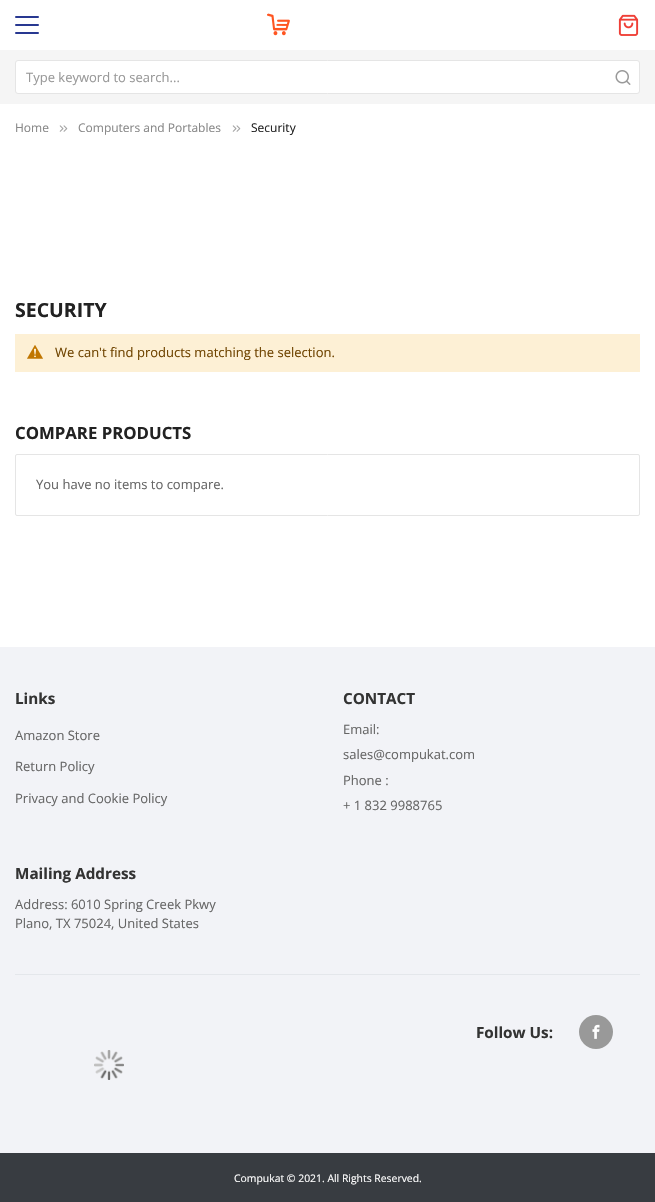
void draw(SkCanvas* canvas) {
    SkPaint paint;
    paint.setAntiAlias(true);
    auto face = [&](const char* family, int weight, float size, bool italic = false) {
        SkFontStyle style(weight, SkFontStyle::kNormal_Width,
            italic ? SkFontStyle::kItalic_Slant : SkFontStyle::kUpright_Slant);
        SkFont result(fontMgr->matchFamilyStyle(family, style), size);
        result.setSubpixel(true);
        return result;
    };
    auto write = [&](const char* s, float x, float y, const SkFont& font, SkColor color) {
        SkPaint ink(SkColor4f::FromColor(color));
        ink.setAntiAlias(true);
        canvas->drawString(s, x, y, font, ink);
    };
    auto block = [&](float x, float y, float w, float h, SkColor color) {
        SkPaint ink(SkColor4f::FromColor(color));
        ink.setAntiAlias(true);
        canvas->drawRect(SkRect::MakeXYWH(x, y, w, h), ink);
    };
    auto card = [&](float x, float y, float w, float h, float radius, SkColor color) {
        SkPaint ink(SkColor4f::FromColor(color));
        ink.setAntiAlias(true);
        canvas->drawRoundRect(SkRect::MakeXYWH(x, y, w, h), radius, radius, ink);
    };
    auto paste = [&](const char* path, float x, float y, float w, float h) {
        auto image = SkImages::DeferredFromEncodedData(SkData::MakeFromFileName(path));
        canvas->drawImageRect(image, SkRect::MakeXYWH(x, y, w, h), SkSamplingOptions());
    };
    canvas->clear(SK_ColorWHITE);
    card(15, 16, 24, 2, 1, SkColorSetRGB(40, 56, 145));
    card(15, 24, 24, 2, 1, SkColorSetRGB(40, 56, 145));
    card(15, 32, 24, 2, 1, SkColorSetRGB(40, 56, 145));
    paste("pic1.png", 267, 13, 23, 23);
    paste("pic2.png", 618, 14, 21, 22);
    block(0, 50, 655, 54, SkColorSetRGB(245, 245, 245));
    paint.setColor(SK_ColorWHITE);
    canvas->drawRoundRect(SkRect::MakeXYWH(15.5f, 60.5f, 624, 33), 2.5f, 2.5f, paint);
    paint.setStyle(SkPaint::kStroke_Style);
    paint.setStrokeWidth(1);
    paint.setColor(SkColorSetRGB(229, 229, 229));
    canvas->drawRoundRect(SkRect::MakeXYWH(15.5f, 60.5f, 624, 33), 2.5f, 2.5f, paint);
    auto kFont1 = face("Open Sans", 400, 13);
    write("Type keyword to search...", 26, 82, kFont1, SkColorSetRGB(153, 153, 153));
    paste("pic3.png", 615, 70, 16, 15);
    auto kFont2 = face("Open Sans", 400, 12);
    write("Home", 15, 132, kFont2, SkColorSetRGB(136, 136, 136));
    paste("pic4.png", 59, 125, 9, 7);
    write("Computers and Portables", 78, 132, kFont2, SkColorSetRGB(136, 136, 136));
    paste("pic4.png", 232, 125, 9, 7);
    write("Security", 251, 132, kFont2, SkColorSetRGB(34, 34, 34));
    auto kFont3 = face("Open Sans", 700, 19.5f);
    write("SECURITY", 15, 317, kFont3, SkColorSetRGB(34, 34, 34));
    block(15, 334, 625, 38, SkColorSetRGB(253, 240, 213));
    paste("pic5.png", 27, 345, 16, 14);
    write("We can't find products matching the selection.", 55, 357, kFont1, SkColorSetRGB(111, 68, 0));
    auto kFont4 = face("Open Sans", 700, 16.75f);
    write("COMPARE PRODUCTS", 15, 439, kFont4, SkColorSetRGB(34, 34, 34));
    canvas->drawRoundRect(SkRect::MakeXYWH(15.5f, 454.5f, 624, 61), 1.5f, 1.5f, paint);
    write("You have no items to compare.", 36, 489, kFont1, SkColorSetRGB(102, 102, 102));
    block(0, 647, 655, 506, SkColorSetRGB(242, 243, 247));
    auto kFont5 = face("Open Sans", 700, 15.25f);
    write("Links", 15, 704, kFont5, SkColorSetRGB(51, 51, 51));
    write("Amazon Store", 15, 740, kFont1, SkColorSetRGB(102, 102, 102));
    write("Return Policy", 15, 771, kFont1, SkColorSetRGB(102, 102, 102));
    write("Privacy and Cookie Policy", 15, 803, kFont1, SkColorSetRGB(102, 102, 102));
    write("CONTACT", 343, 704, kFont5, SkColorSetRGB(51, 51, 51));
    write("Email:", 343, 734, kFont1, SkColorSetRGB(102, 102, 102));
    write("sales@compukat.com", 343, 759, kFont1, SkColorSetRGB(102, 102, 102));
    write("Phone :", 343, 785, kFont1, SkColorSetRGB(102, 102, 102));
    write("+ 1 832 9988765", 343, 810, kFont1, SkColorSetRGB(102, 102, 102));
    write("Mailing Address", 15, 879, kFont5, SkColorSetRGB(51, 51, 51));
    write("Address: 6010 Spring Creek Pkwy", 15, 909, kFont1, SkColorSetRGB(102, 102, 102));
    write("Plano, TX 75024, United States", 15, 928, kFont1, SkColorSetRGB(102, 102, 102));
    block(15, 974, 625, 1, SkColorSetRGB(228, 231, 235));
    write("Follow Us:", 476, 1038, kFont5, SkColorSetRGB(51, 51, 51));
    paint.setStyle(SkPaint::kFill_Style);
    paint.setColor(SkColorSetRGB(153, 153, 153));
    canvas->drawCircle(596, 1032, 17, paint);
    paste("pic6.png", 592, 1024, 8, 15);
    paste("pic7.png", 94, 1050, 30, 30);
    block(0, 1153, 655, 49, SkColorSetRGB(56, 60, 65));
    auto kFont6 = face("Open Sans", 400, 10.4f);
    write("Compukat © 2021. All Rights Reserved.", 234, 1182, kFont6, SK_ColorWHITE);
}
